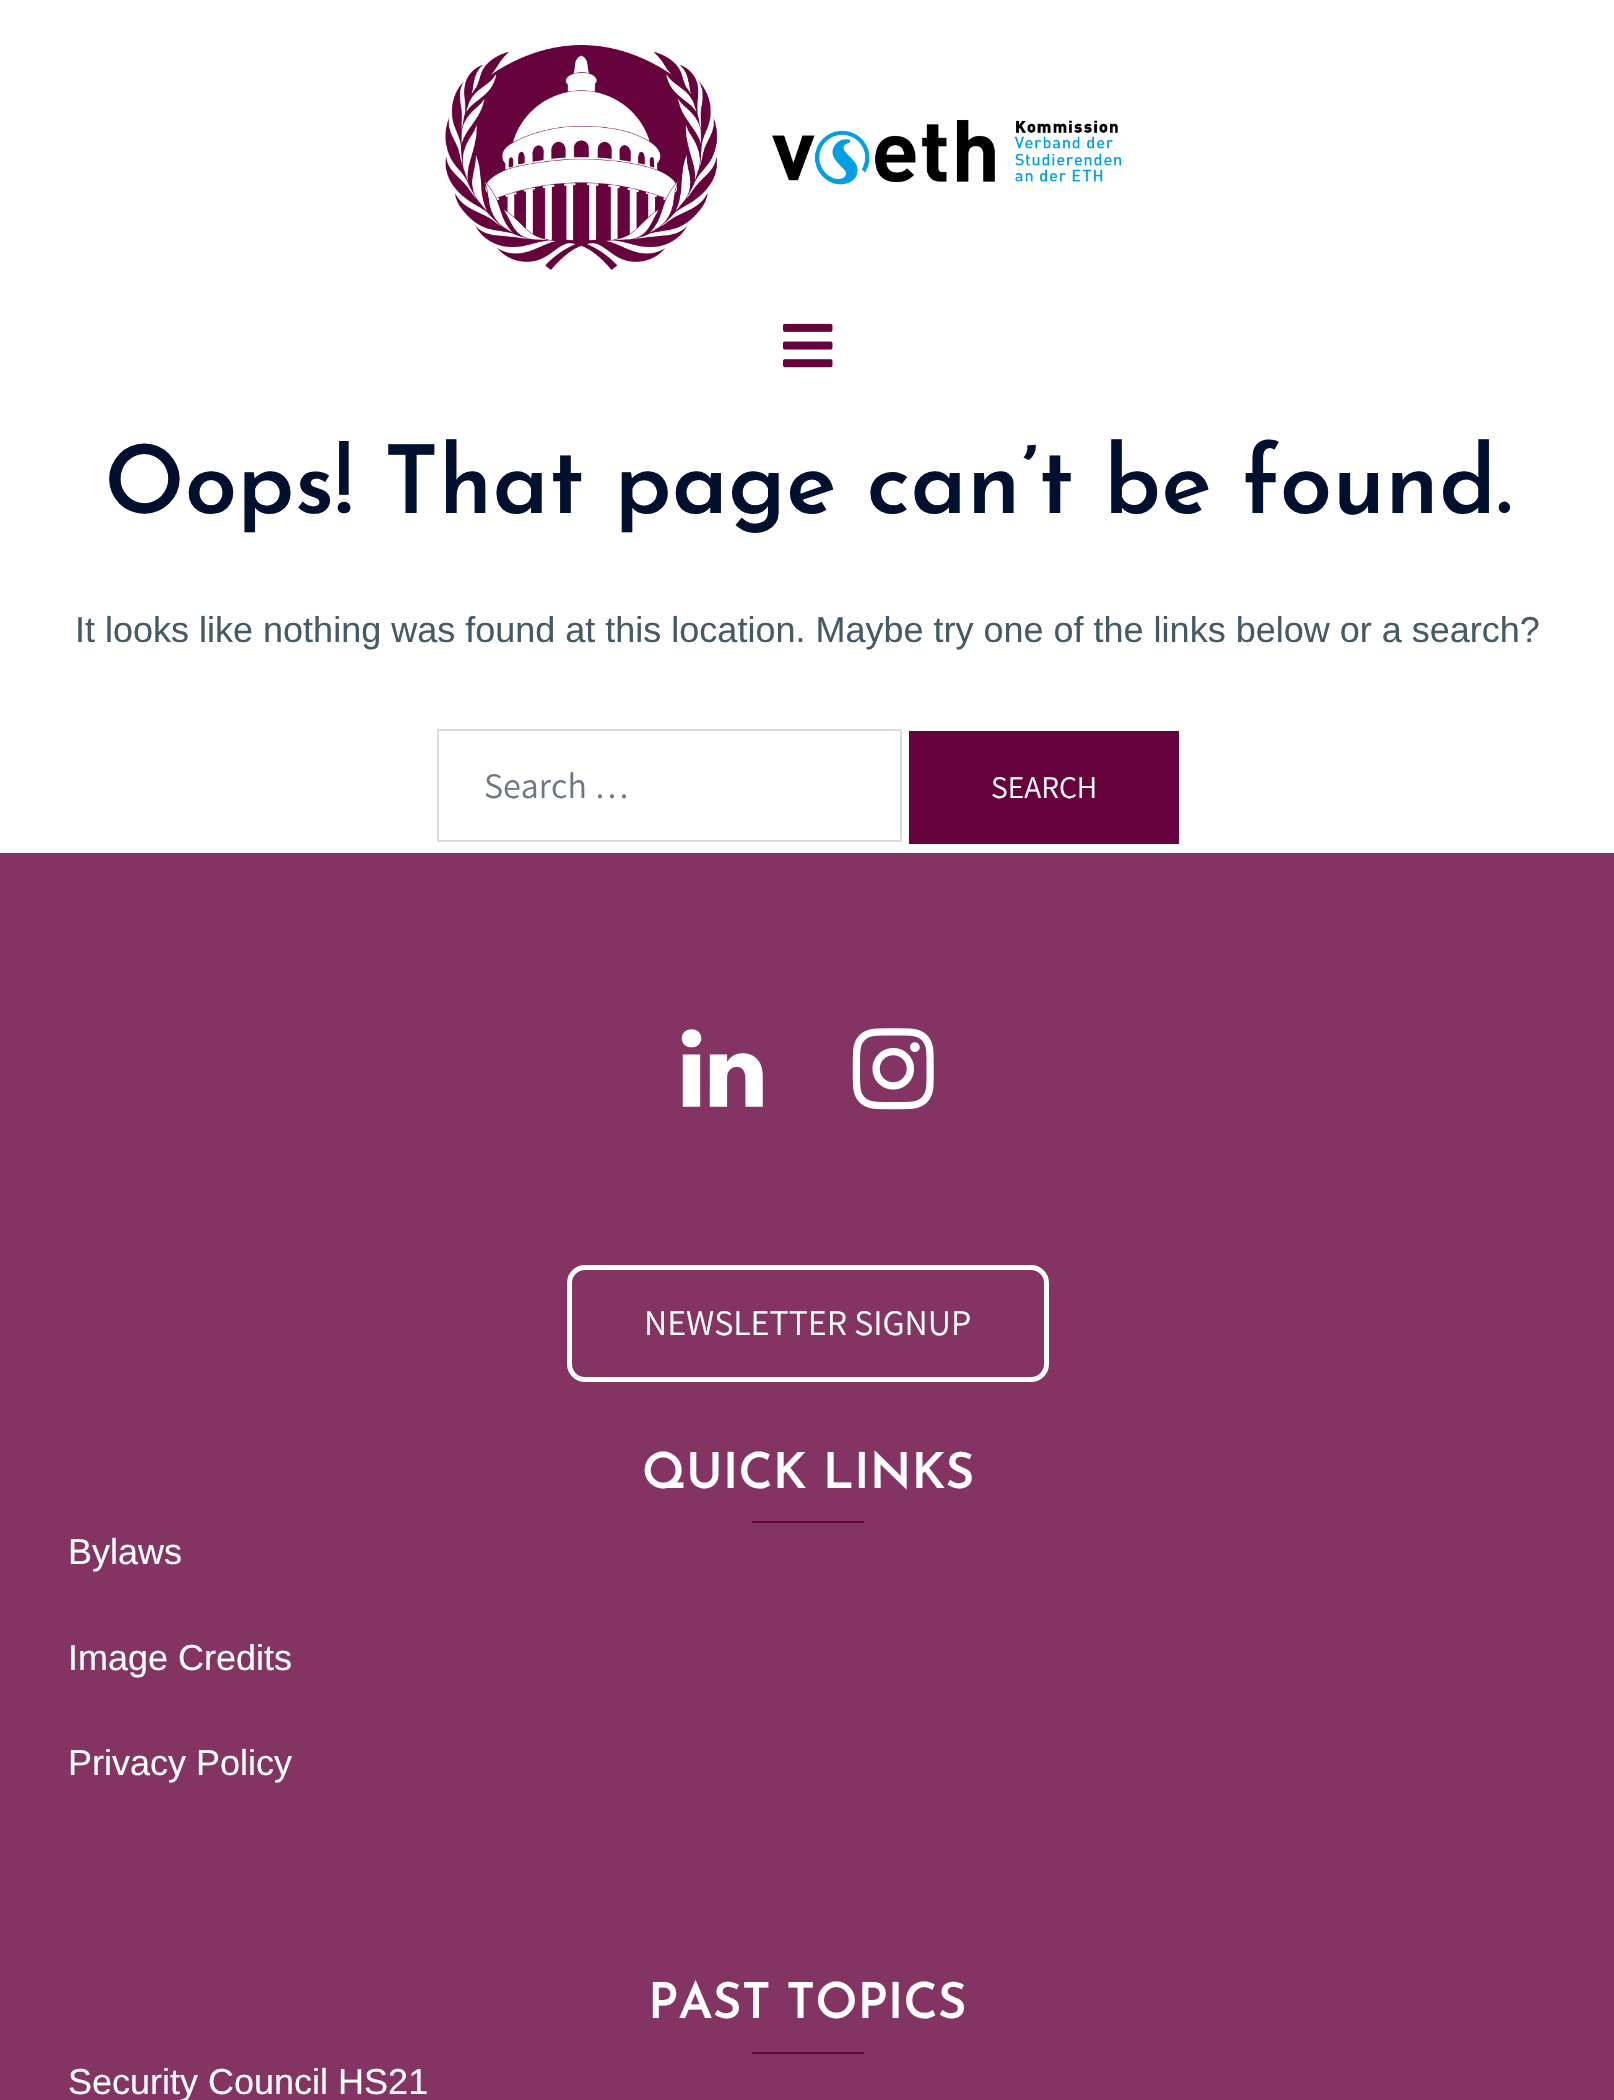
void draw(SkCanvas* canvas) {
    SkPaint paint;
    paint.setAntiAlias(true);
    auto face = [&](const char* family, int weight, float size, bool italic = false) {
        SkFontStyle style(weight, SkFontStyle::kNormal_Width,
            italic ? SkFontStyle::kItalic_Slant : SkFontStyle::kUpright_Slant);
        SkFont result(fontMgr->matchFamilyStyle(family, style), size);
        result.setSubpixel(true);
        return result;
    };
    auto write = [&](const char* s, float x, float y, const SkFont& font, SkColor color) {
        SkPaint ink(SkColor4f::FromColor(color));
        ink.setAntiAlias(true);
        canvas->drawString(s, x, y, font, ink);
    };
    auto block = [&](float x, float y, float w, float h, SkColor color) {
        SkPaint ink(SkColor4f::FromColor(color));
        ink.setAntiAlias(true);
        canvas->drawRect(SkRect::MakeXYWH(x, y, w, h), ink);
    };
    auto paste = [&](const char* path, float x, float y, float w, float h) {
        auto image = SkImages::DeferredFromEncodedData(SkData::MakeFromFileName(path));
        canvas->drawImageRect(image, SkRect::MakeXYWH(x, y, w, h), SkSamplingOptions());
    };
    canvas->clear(SK_ColorWHITE);
    paste("pic1.png", 445, 45, 677, 225);
    paste("pic2.png", 783, 323, 50, 45);
    auto kFont1 = face("Josefin Sans", 100, 94.5f);
    write("Oops! That page can’t be found.", 104, 513, kFont1, SkColorSetRGB(0, 16, 46));
    auto kFont2 = face("Liberation Sans", 400, 36);
    write("It looks like nothing was found at this location. Maybe try one of the links below or a search?", 75, 642, kFont2, SkColorSetRGB(69, 90, 100));
    paint.setStyle(SkPaint::kStroke_Style);
    paint.setStrokeWidth(2);
    paint.setColor(SkColorSetRGB(219, 219, 219));
    canvas->drawRect(SkRect::MakeXYWH(438, 730, 463, 111), paint);
    auto kFont3 = face("Assistant", 400, 36);
    write("Search …", 484, 798, kFont3, SkColorSetRGB(109, 118, 133));
    block(909, 731, 270, 113, SkColorSetRGB(102, 2, 60));
    auto kFont4 = face("Assistant", 400, 31.5f);
    write("SEARCH", 991, 798, kFont4, SK_ColorWHITE);
    block(0, 853, 1614, 1247, SkColorSetRGB(132, 52, 99));
    paste("pic3.png", 681, 1029, 82, 78);
    paste("pic4.png", 852, 1028, 82, 82);
    paint.setStrokeWidth(5);
    paint.setColor(SK_ColorWHITE);
    canvas->drawRoundRect(SkRect::MakeXYWH(569.5f, 1267.5f, 477, 112), 15.5f, 15.5f, paint);
    write("NEWSLETTER SIGNUP", 644, 1335, kFont3, SK_ColorWHITE);
    auto kFont5 = face("Josefin Sans", 100, 49.5f);
    write("QUICK LINKS", 642, 1488, kFont5, SK_ColorWHITE);
    block(752, 1521, 112, 2, SkColorSetRGB(102, 2, 60));
    write("Bylaws", 68, 1564, kFont2, SK_ColorWHITE);
    write("Image Credits", 68, 1670, kFont2, SK_ColorWHITE);
    write("Privacy Policy", 68, 1775, kFont2, SK_ColorWHITE);
    write("PAST TOPICS", 648, 2018, kFont5, SK_ColorWHITE);
    block(752, 2052, 112, 2, SkColorSetRGB(102, 2, 60));
    write("Security Council HS21", 68, 2094, kFont2, SK_ColorWHITE);
}
